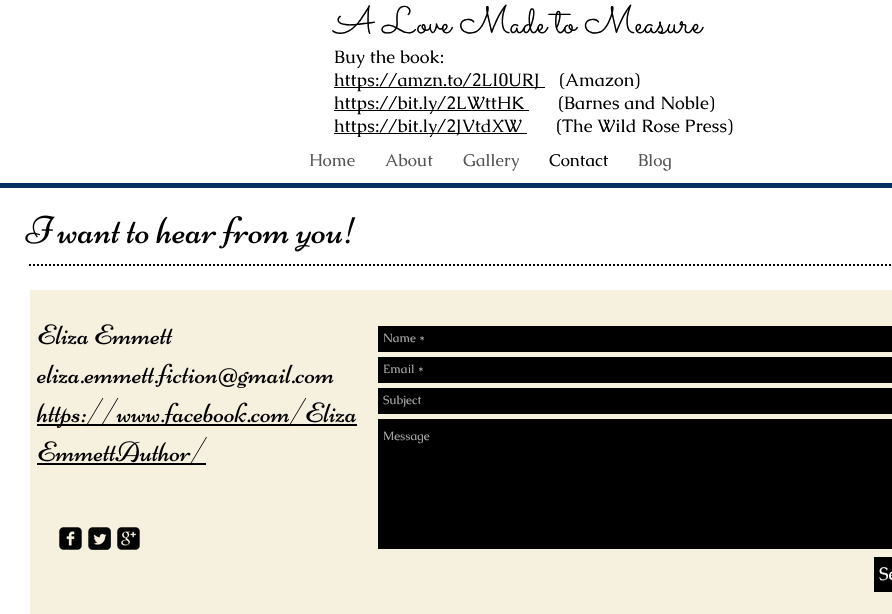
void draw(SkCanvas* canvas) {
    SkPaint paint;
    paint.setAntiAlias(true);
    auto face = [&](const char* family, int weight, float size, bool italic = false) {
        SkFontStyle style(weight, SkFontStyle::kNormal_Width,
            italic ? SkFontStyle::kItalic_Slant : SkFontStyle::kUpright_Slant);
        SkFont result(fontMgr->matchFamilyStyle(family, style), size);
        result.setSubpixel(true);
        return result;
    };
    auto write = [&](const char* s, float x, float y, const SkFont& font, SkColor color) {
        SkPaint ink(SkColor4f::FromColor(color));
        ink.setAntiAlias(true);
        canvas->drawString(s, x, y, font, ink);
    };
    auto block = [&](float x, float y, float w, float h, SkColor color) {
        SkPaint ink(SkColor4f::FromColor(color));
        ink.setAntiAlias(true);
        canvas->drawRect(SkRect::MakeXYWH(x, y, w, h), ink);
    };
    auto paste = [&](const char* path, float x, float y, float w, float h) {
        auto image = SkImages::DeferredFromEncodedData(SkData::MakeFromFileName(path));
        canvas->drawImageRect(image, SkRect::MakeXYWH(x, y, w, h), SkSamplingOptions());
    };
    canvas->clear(SkColorSetRGB(0, 46, 93));
    block(0, 0, 892, 137, SK_ColorWHITE);
    auto kFont1 = face("Sacramento", 400, 38);
    write("A Love Made to Measure", 334, 33, kFont1, SK_ColorBLACK);
    auto kFont2 = face("Caudex", 400, 18);
    write("Buy the book:", 334, 63, kFont2, SK_ColorBLACK);
    block(334, 87, 211, 1, SK_ColorBLACK);
    write("https://amzn.to/2LI0URJ", 334, 86, kFont2, SK_ColorBLACK);
    write("(Amazon)", 559, 86, kFont2, SK_ColorBLACK);
    block(334, 110, 195, 1, SK_ColorBLACK);
    write("https://bit.ly/2LWttHK", 334, 109, kFont2, SK_ColorBLACK);
    write("(Barnes and Noble)", 558, 109, kFont2, SK_ColorBLACK);
    block(334, 133, 193, 1, SK_ColorBLACK);
    write("https://bit.ly/2JVtdXW", 334, 132, kFont2, SK_ColorBLACK);
    write("(The Wild Rose Press)", 556, 132, kFont2, SK_ColorBLACK);
    block(0, 137, 892, 46, SK_ColorWHITE);
    auto kFont3 = face("Caudex", 400, 17);
    write("Home", 309, 166, kFont3, SkColorSetRGB(84, 84, 84));
    write("About", 385, 166, kFont3, SkColorSetRGB(84, 84, 84));
    write("Gallery", 463, 166, kFont3, SkColorSetRGB(84, 84, 84));
    write("Contact", 549, 166, kFont3, SK_ColorBLACK);
    write("Blog", 638, 166, kFont3, SkColorSetRGB(84, 84, 84));
    block(0, 188, 892, 426, SK_ColorWHITE);
    paste("pic1.png", 25, 215, 331, 37);
    paint.setStyle(SkPaint::kStroke_Style);
    paint.setStrokeWidth(2);
    paint.setColor(SK_ColorBLACK);
    paint.setPathEffect(SkDashPathEffect::Make({{2, 2}}, 0));
    canvas->drawPath(SkPathBuilder().moveTo(29, 265).lineTo(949, 265).detach(), paint);
    paint.setPathEffect(nullptr);
    block(30, 290, 862, 324, SkColorSetRGB(246, 240, 223));
    paste("pic2.png", 38, 324, 135, 21);
    paste("pic3.png", 37, 363, 297, 25);
    block(37, 424, 320, 2, SK_ColorBLACK);
    paste("pic4.png", 36, 397, 320, 32);
    block(37, 463, 169, 2, SK_ColorBLACK);
    paste("pic5.png", 38, 436, 169, 30);
    block(378, 326, 514, 26, SK_ColorBLACK);
    auto kFont4 = face("Caudex", 400, 12);
    write("Name *", 383, 342, kFont4, SkColorSetRGB(169, 169, 169));
    block(378, 357, 514, 26, SK_ColorBLACK);
    write("Email *", 383, 373, kFont4, SkColorSetRGB(169, 169, 169));
    block(378, 388, 514, 26, SK_ColorBLACK);
    write("Subject", 383, 404, kFont4, SkColorSetRGB(169, 169, 169));
    block(378, 419, 514, 130, SK_ColorBLACK);
    write("Message", 383, 440, kFont4, SkColorSetRGB(169, 169, 169));
    block(874, 557, 18, 35, SK_ColorBLACK);
    write("Se", 879, 580, kFont2, SK_ColorWHITE);
    paste("pic6.png", 59, 527, 23, 23);
    paste("pic7.png", 88, 527, 23, 23);
    paste("pic8.png", 117, 527, 23, 23);
}
